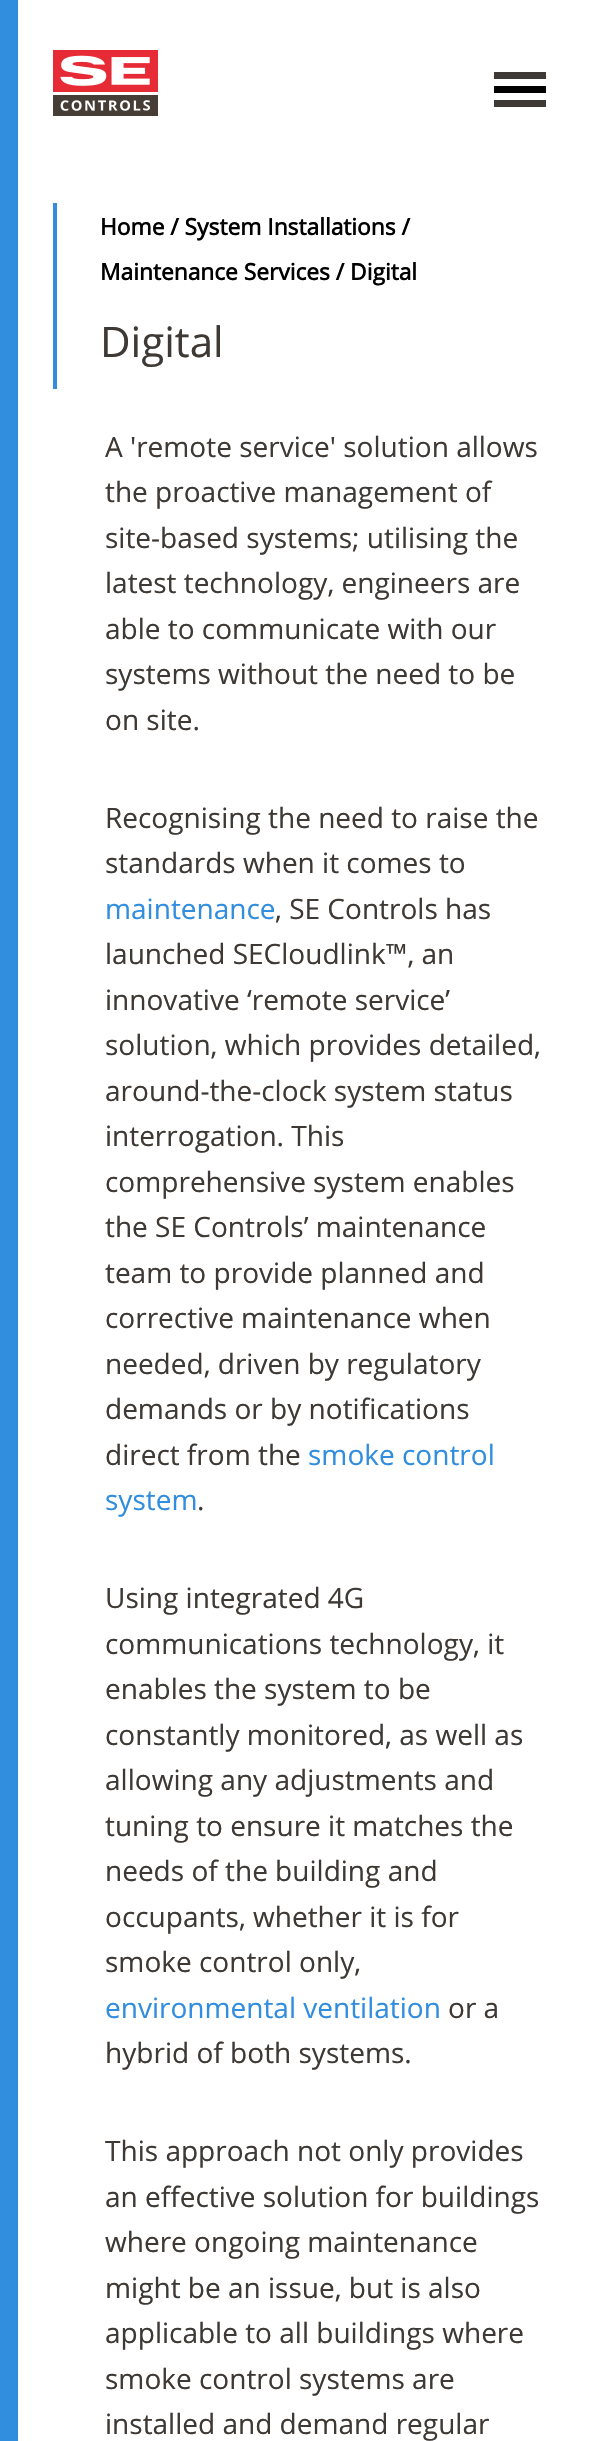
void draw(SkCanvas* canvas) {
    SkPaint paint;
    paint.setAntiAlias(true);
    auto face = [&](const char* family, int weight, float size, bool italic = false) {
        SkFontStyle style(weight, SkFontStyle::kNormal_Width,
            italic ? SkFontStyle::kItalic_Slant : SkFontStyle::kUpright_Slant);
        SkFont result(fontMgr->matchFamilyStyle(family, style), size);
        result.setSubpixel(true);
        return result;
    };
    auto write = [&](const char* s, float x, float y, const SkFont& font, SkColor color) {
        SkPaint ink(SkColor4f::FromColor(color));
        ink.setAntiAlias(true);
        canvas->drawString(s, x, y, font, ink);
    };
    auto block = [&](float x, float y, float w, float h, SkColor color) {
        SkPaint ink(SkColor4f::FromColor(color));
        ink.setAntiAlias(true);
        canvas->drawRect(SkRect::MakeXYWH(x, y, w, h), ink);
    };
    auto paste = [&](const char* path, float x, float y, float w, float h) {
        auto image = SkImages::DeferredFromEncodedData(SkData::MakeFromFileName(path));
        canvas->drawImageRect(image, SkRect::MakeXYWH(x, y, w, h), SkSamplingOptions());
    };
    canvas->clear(SK_ColorWHITE);
    block(0, 0, 18, 2441, SkColorSetRGB(49, 141, 222));
    paste("pic1.png", 53, 50, 105, 66);
    block(494, 86, 52, 7, SK_ColorBLACK);
    block(494, 72, 52, 7, SkColorSetRGB(62, 57, 52));
    block(494, 100, 52, 7, SkColorSetRGB(62, 57, 52));
    block(53, 203, 4, 186, SkColorSetRGB(49, 141, 222));
    auto kFont1 = face("Open Sans", 700, 22.75f);
    write("Home / System Installations /", 100, 235, kFont1, SK_ColorBLACK);
    write("Maintenance Services / Digital", 100, 280, kFont1, SK_ColorBLACK);
    auto kFont2 = face("Open Sans", 400, 42);
    write("Digital", 100, 357, kFont2, SkColorSetRGB(62, 57, 52));
    auto kFont3 = face("Open Sans", 400, 28);
    write("A 'remote service' solution allows", 105, 457, kFont3, SkColorSetRGB(62, 57, 52));
    write("the proactive management of", 105, 502, kFont3, SkColorSetRGB(62, 57, 52));
    write("site-based systems; utilising the", 105, 548, kFont3, SkColorSetRGB(62, 57, 52));
    write("latest technology, engineers are", 105, 593, kFont3, SkColorSetRGB(62, 57, 52));
    write("able to communicate with our", 105, 639, kFont3, SkColorSetRGB(62, 57, 52));
    write("systems without the need to be", 105, 684, kFont3, SkColorSetRGB(62, 57, 52));
    write("on site.", 105, 730, kFont3, SkColorSetRGB(62, 57, 52));
    write("Recognising the need to raise the", 105, 828, kFont3, SkColorSetRGB(62, 57, 52));
    write("standards when it comes to", 105, 873, kFont3, SkColorSetRGB(62, 57, 52));
    write("maintenance", 105, 919, kFont3, SkColorSetRGB(49, 141, 222));
    write(", SE Controls has", 275, 919, kFont3, SkColorSetRGB(62, 57, 52));
    write("launched SECloudlink™, an", 105, 964, kFont3, SkColorSetRGB(62, 57, 52));
    write("innovative ‘remote service’", 105, 1010, kFont3, SkColorSetRGB(62, 57, 52));
    write("solution, which provides detailed,", 105, 1055, kFont3, SkColorSetRGB(62, 57, 52));
    write("around-the-clock system status", 105, 1101, kFont3, SkColorSetRGB(62, 57, 52));
    write("interrogation. This", 105, 1146, kFont3, SkColorSetRGB(62, 57, 52));
    write("comprehensive system enables", 105, 1192, kFont3, SkColorSetRGB(62, 57, 52));
    write("the SE Controls’ maintenance", 105, 1237, kFont3, SkColorSetRGB(62, 57, 52));
    write("team to provide planned and", 105, 1283, kFont3, SkColorSetRGB(62, 57, 52));
    write("corrective maintenance when", 105, 1328, kFont3, SkColorSetRGB(62, 57, 52));
    write("needed, driven by regulatory", 105, 1374, kFont3, SkColorSetRGB(62, 57, 52));
    write("demands or by notifications", 105, 1419, kFont3, SkColorSetRGB(62, 57, 52));
    write("direct from the", 105, 1465, kFont3, SkColorSetRGB(62, 57, 52));
    write("smoke control", 308, 1465, kFont3, SkColorSetRGB(49, 141, 222));
    write("system", 105, 1510, kFont3, SkColorSetRGB(49, 141, 222));
    write(".", 197, 1510, kFont3, SkColorSetRGB(62, 57, 52));
    write("Using integrated 4G", 105, 1608, kFont3, SkColorSetRGB(62, 57, 52));
    write("communications technology, it", 105, 1654, kFont3, SkColorSetRGB(62, 57, 52));
    write("enables the system to be", 105, 1699, kFont3, SkColorSetRGB(62, 57, 52));
    write("constantly monitored, as well as", 105, 1745, kFont3, SkColorSetRGB(62, 57, 52));
    write("allowing any adjustments and", 105, 1790, kFont3, SkColorSetRGB(62, 57, 52));
    write("tuning to ensure it matches the", 105, 1836, kFont3, SkColorSetRGB(62, 57, 52));
    write("needs of the building and", 105, 1881, kFont3, SkColorSetRGB(62, 57, 52));
    write("occupants, whether it is for", 105, 1927, kFont3, SkColorSetRGB(62, 57, 52));
    write("smoke control only,", 105, 1972, kFont3, SkColorSetRGB(62, 57, 52));
    write("environmental ventilation", 105, 2018, kFont3, SkColorSetRGB(49, 141, 222));
    write("or a", 448, 2018, kFont3, SkColorSetRGB(62, 57, 52));
    write("hybrid of both systems.", 105, 2063, kFont3, SkColorSetRGB(62, 57, 52));
    write("This approach not only provides", 105, 2161, kFont3, SkColorSetRGB(62, 57, 52));
    write("an effective solution for buildings", 105, 2207, kFont3, SkColorSetRGB(62, 57, 52));
    write("where ongoing maintenance", 105, 2252, kFont3, SkColorSetRGB(62, 57, 52));
    write("might be an issue, but is also", 105, 2298, kFont3, SkColorSetRGB(62, 57, 52));
    write("applicable to all buildings where", 105, 2343, kFont3, SkColorSetRGB(62, 57, 52));
    write("smoke control systems are", 105, 2389, kFont3, SkColorSetRGB(62, 57, 52));
    write("installed and demand regular", 105, 2434, kFont3, SkColorSetRGB(62, 57, 52));
}
